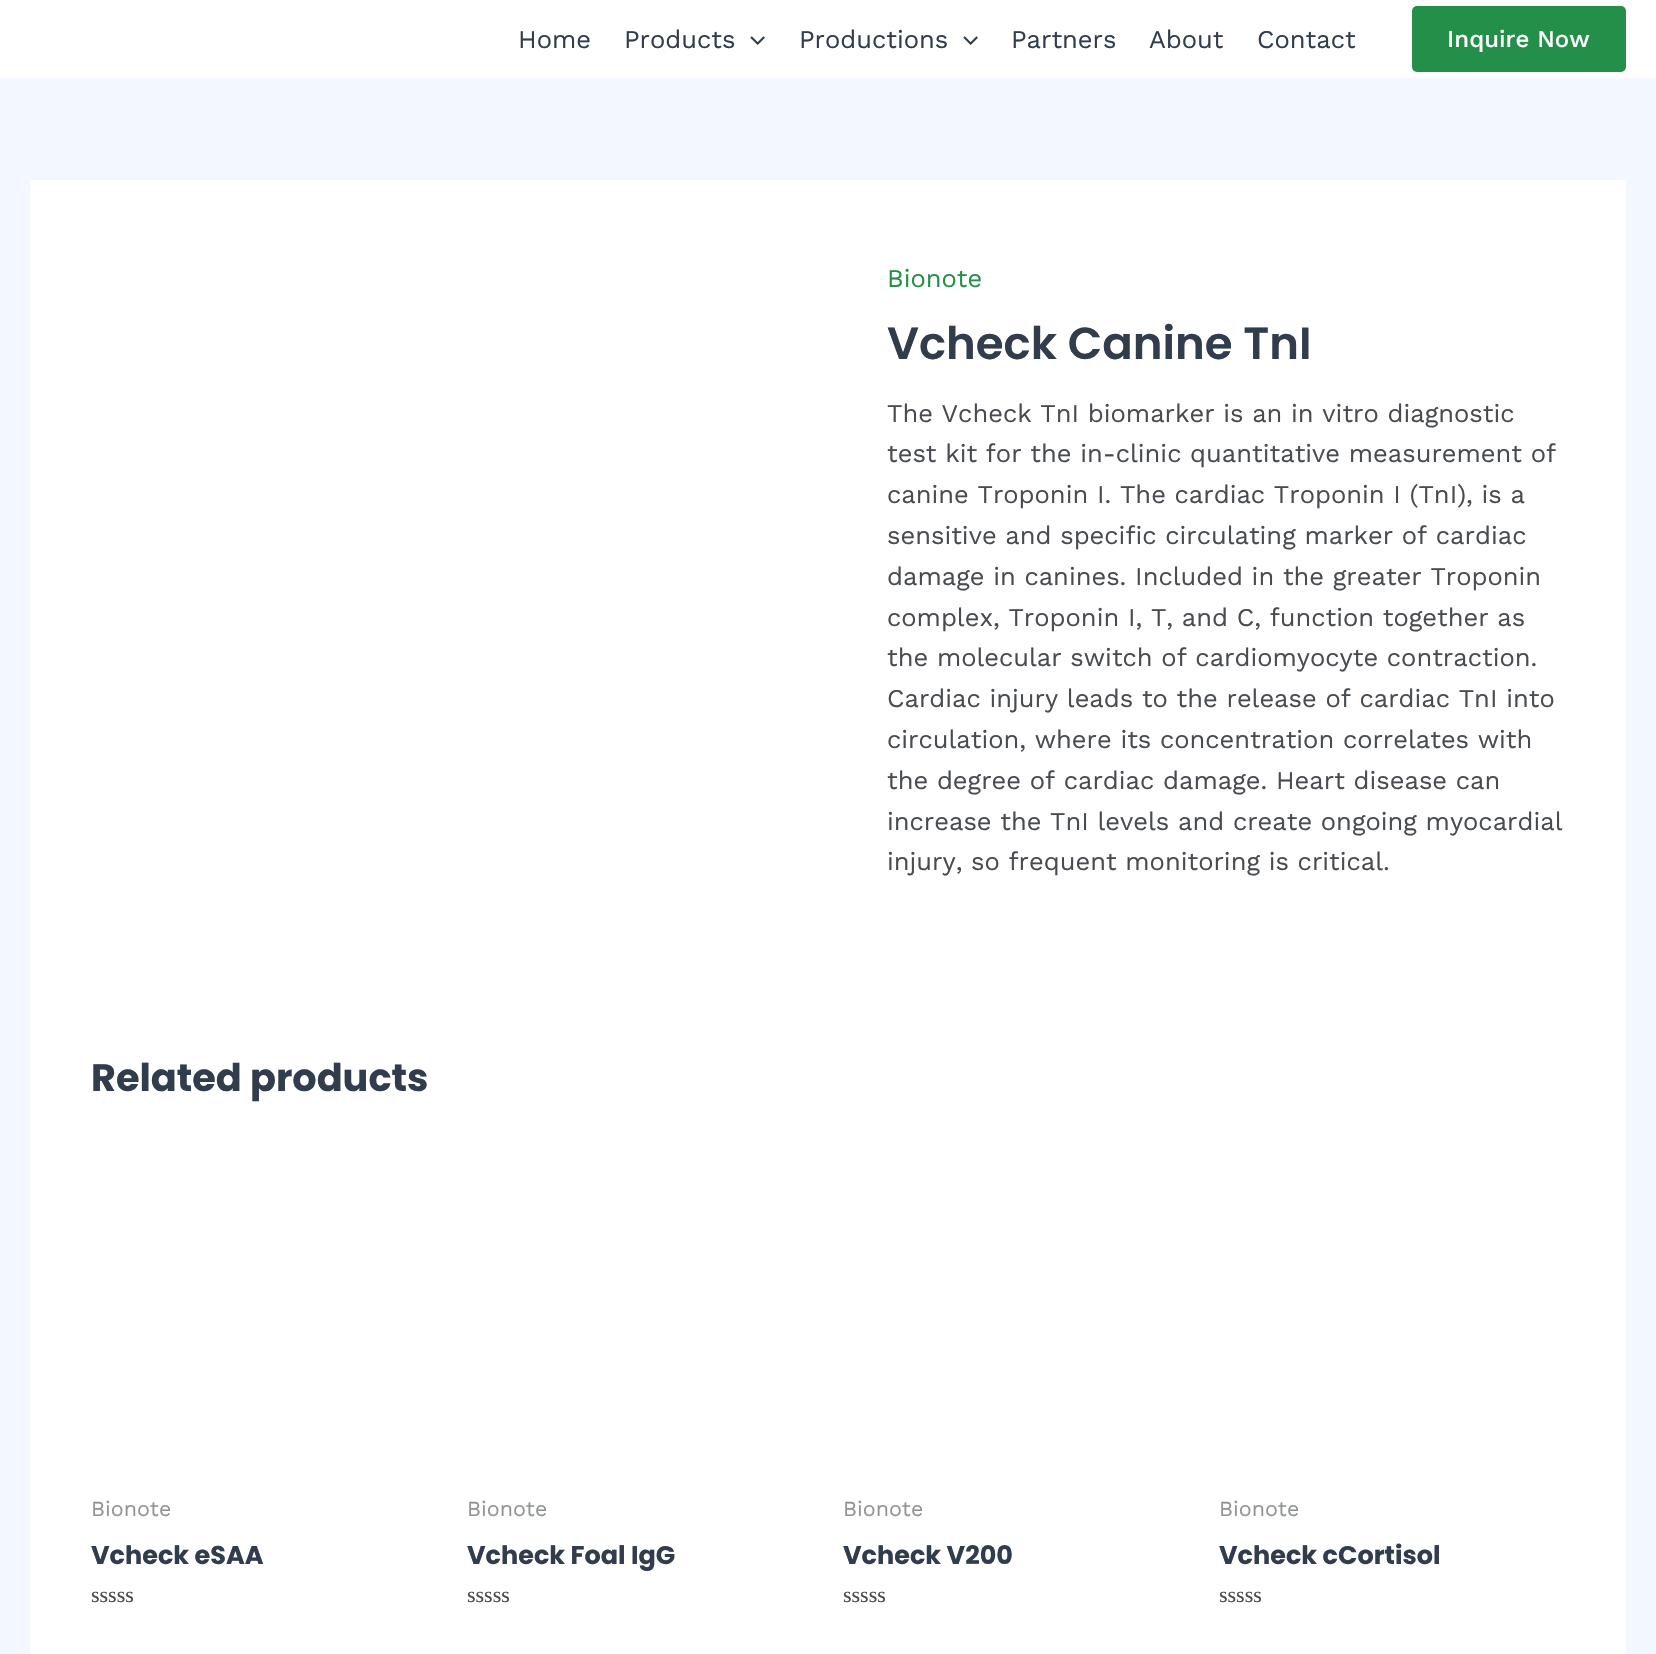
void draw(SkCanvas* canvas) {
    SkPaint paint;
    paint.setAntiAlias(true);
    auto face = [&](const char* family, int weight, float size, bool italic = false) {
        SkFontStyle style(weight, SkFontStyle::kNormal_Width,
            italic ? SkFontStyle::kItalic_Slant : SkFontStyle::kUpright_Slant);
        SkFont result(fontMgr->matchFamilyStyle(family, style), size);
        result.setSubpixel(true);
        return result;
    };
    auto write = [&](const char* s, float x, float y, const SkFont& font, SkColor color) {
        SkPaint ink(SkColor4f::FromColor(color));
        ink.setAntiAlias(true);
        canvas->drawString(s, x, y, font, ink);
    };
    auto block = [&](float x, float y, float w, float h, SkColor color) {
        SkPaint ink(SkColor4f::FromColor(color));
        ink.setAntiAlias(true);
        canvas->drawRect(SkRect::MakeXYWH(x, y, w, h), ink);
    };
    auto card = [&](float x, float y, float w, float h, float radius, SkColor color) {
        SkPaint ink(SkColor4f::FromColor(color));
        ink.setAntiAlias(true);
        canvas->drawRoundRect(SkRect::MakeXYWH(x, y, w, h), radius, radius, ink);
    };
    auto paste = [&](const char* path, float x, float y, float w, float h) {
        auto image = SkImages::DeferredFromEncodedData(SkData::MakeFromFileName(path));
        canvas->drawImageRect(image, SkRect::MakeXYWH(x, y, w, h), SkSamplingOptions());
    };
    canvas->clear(SkColorSetRGB(243, 247, 255));
    block(0, 0, 1656, 78, SK_ColorWHITE);
    auto kFont1 = face("Work Sans", 400, 25.5f);
    write("Home", 518, 48, kFont1, SkColorSetRGB(49, 60, 77));
    write("Products", 624, 48, kFont1, SkColorSetRGB(49, 60, 77));
    paste("pic1.png", 750, 36, 15, 9);
    write("Productions", 799, 48, kFont1, SkColorSetRGB(49, 60, 77));
    paste("pic1.png", 963, 36, 15, 9);
    write("Partners", 1011, 48, kFont1, SkColorSetRGB(49, 60, 77));
    write("About", 1149, 48, kFont1, SkColorSetRGB(49, 60, 77));
    write("Contact", 1257, 48, kFont1, SkColorSetRGB(49, 60, 77));
    card(1412, 6, 214, 66, 5, SkColorSetRGB(36, 143, 72));
    auto kFont2 = face("Work Sans", 500, 24);
    write("Inquire Now", 1447, 47, kFont2, SK_ColorWHITE);
    block(30, 180, 1596, 1474, SK_ColorWHITE);
    write("Bionote", 887, 287, kFont1, SkColorSetRGB(36, 143, 72));
    auto kFont3 = face("Poppins", 600, 45);
    write("Vcheck Canine TnI", 887, 359, kFont3, SkColorSetRGB(49, 60, 77));
    write("The Vcheck TnI biomarker is an in vitro diagnostic", 887, 422, kFont1, SkColorSetRGB(72, 76, 80));
    write("test kit for the in-clinic quantitative measurement of", 887, 462, kFont1, SkColorSetRGB(72, 76, 80));
    write("canine Troponin I. The cardiac Troponin I (TnI), is a", 887, 503, kFont1, SkColorSetRGB(72, 76, 80));
    write("sensitive and specific circulating marker of cardiac", 887, 544, kFont1, SkColorSetRGB(72, 76, 80));
    write("damage in canines. Included in the greater Troponin", 887, 585, kFont1, SkColorSetRGB(72, 76, 80));
    write("complex, Troponin I, T, and C, function together as", 887, 626, kFont1, SkColorSetRGB(72, 76, 80));
    write("the molecular switch of cardiomyocyte contraction.", 887, 666, kFont1, SkColorSetRGB(72, 76, 80));
    write("Cardiac injury leads to the release of cardiac TnI into", 887, 707, kFont1, SkColorSetRGB(72, 76, 80));
    write("circulation, where its concentration correlates with", 887, 748, kFont1, SkColorSetRGB(72, 76, 80));
    write("the degree of cardiac damage. Heart disease can", 887, 789, kFont1, SkColorSetRGB(72, 76, 80));
    write("increase the TnI levels and create ongoing myocardial", 887, 830, kFont1, SkColorSetRGB(72, 76, 80));
    write("injury, so frequent monitoring is critical.", 887, 870, kFont1, SkColorSetRGB(72, 76, 80));
    auto kFont4 = face("Poppins", 700, 38.25f);
    write("Related products", 91, 1091, kFont4, SkColorSetRGB(49, 60, 77));
    auto kFont5 = face("Work Sans", 400, 21.5f);
    write("Bionote", 91, 1516, kFont5, SkColorSetRGB(145, 148, 150));
    auto kFont6 = face("Poppins", 700, 25.5f);
    write("Vcheck eSAA", 91, 1564, kFont6, SkColorSetRGB(49, 60, 77));
    auto kFont7 = face("Liberation Serif", 400, 22);
    write("sssss", 91, 1602, kFont7, SkColorSetRGB(72, 76, 80));
    write("Bionote", 467, 1516, kFont5, SkColorSetRGB(145, 148, 150));
    write("Vcheck Foal IgG", 467, 1564, kFont6, SkColorSetRGB(49, 60, 77));
    write("sssss", 467, 1602, kFont7, SkColorSetRGB(72, 76, 80));
    write("Bionote", 843, 1516, kFont5, SkColorSetRGB(145, 148, 150));
    write("Vcheck V200", 843, 1564, kFont6, SkColorSetRGB(49, 60, 77));
    write("sssss", 843, 1602, kFont7, SkColorSetRGB(72, 76, 80));
    write("Bionote", 1219, 1516, kFont5, SkColorSetRGB(145, 148, 150));
    write("Vcheck cCortisol", 1219, 1564, kFont6, SkColorSetRGB(49, 60, 77));
    canvas->save();
    canvas->clipRect(SkRect::MakeXYWH(1220, 1584, 117, 23));
    write("sssss", 1219, 1602, kFont7, SkColorSetRGB(72, 76, 80));
    canvas->restore();
}
